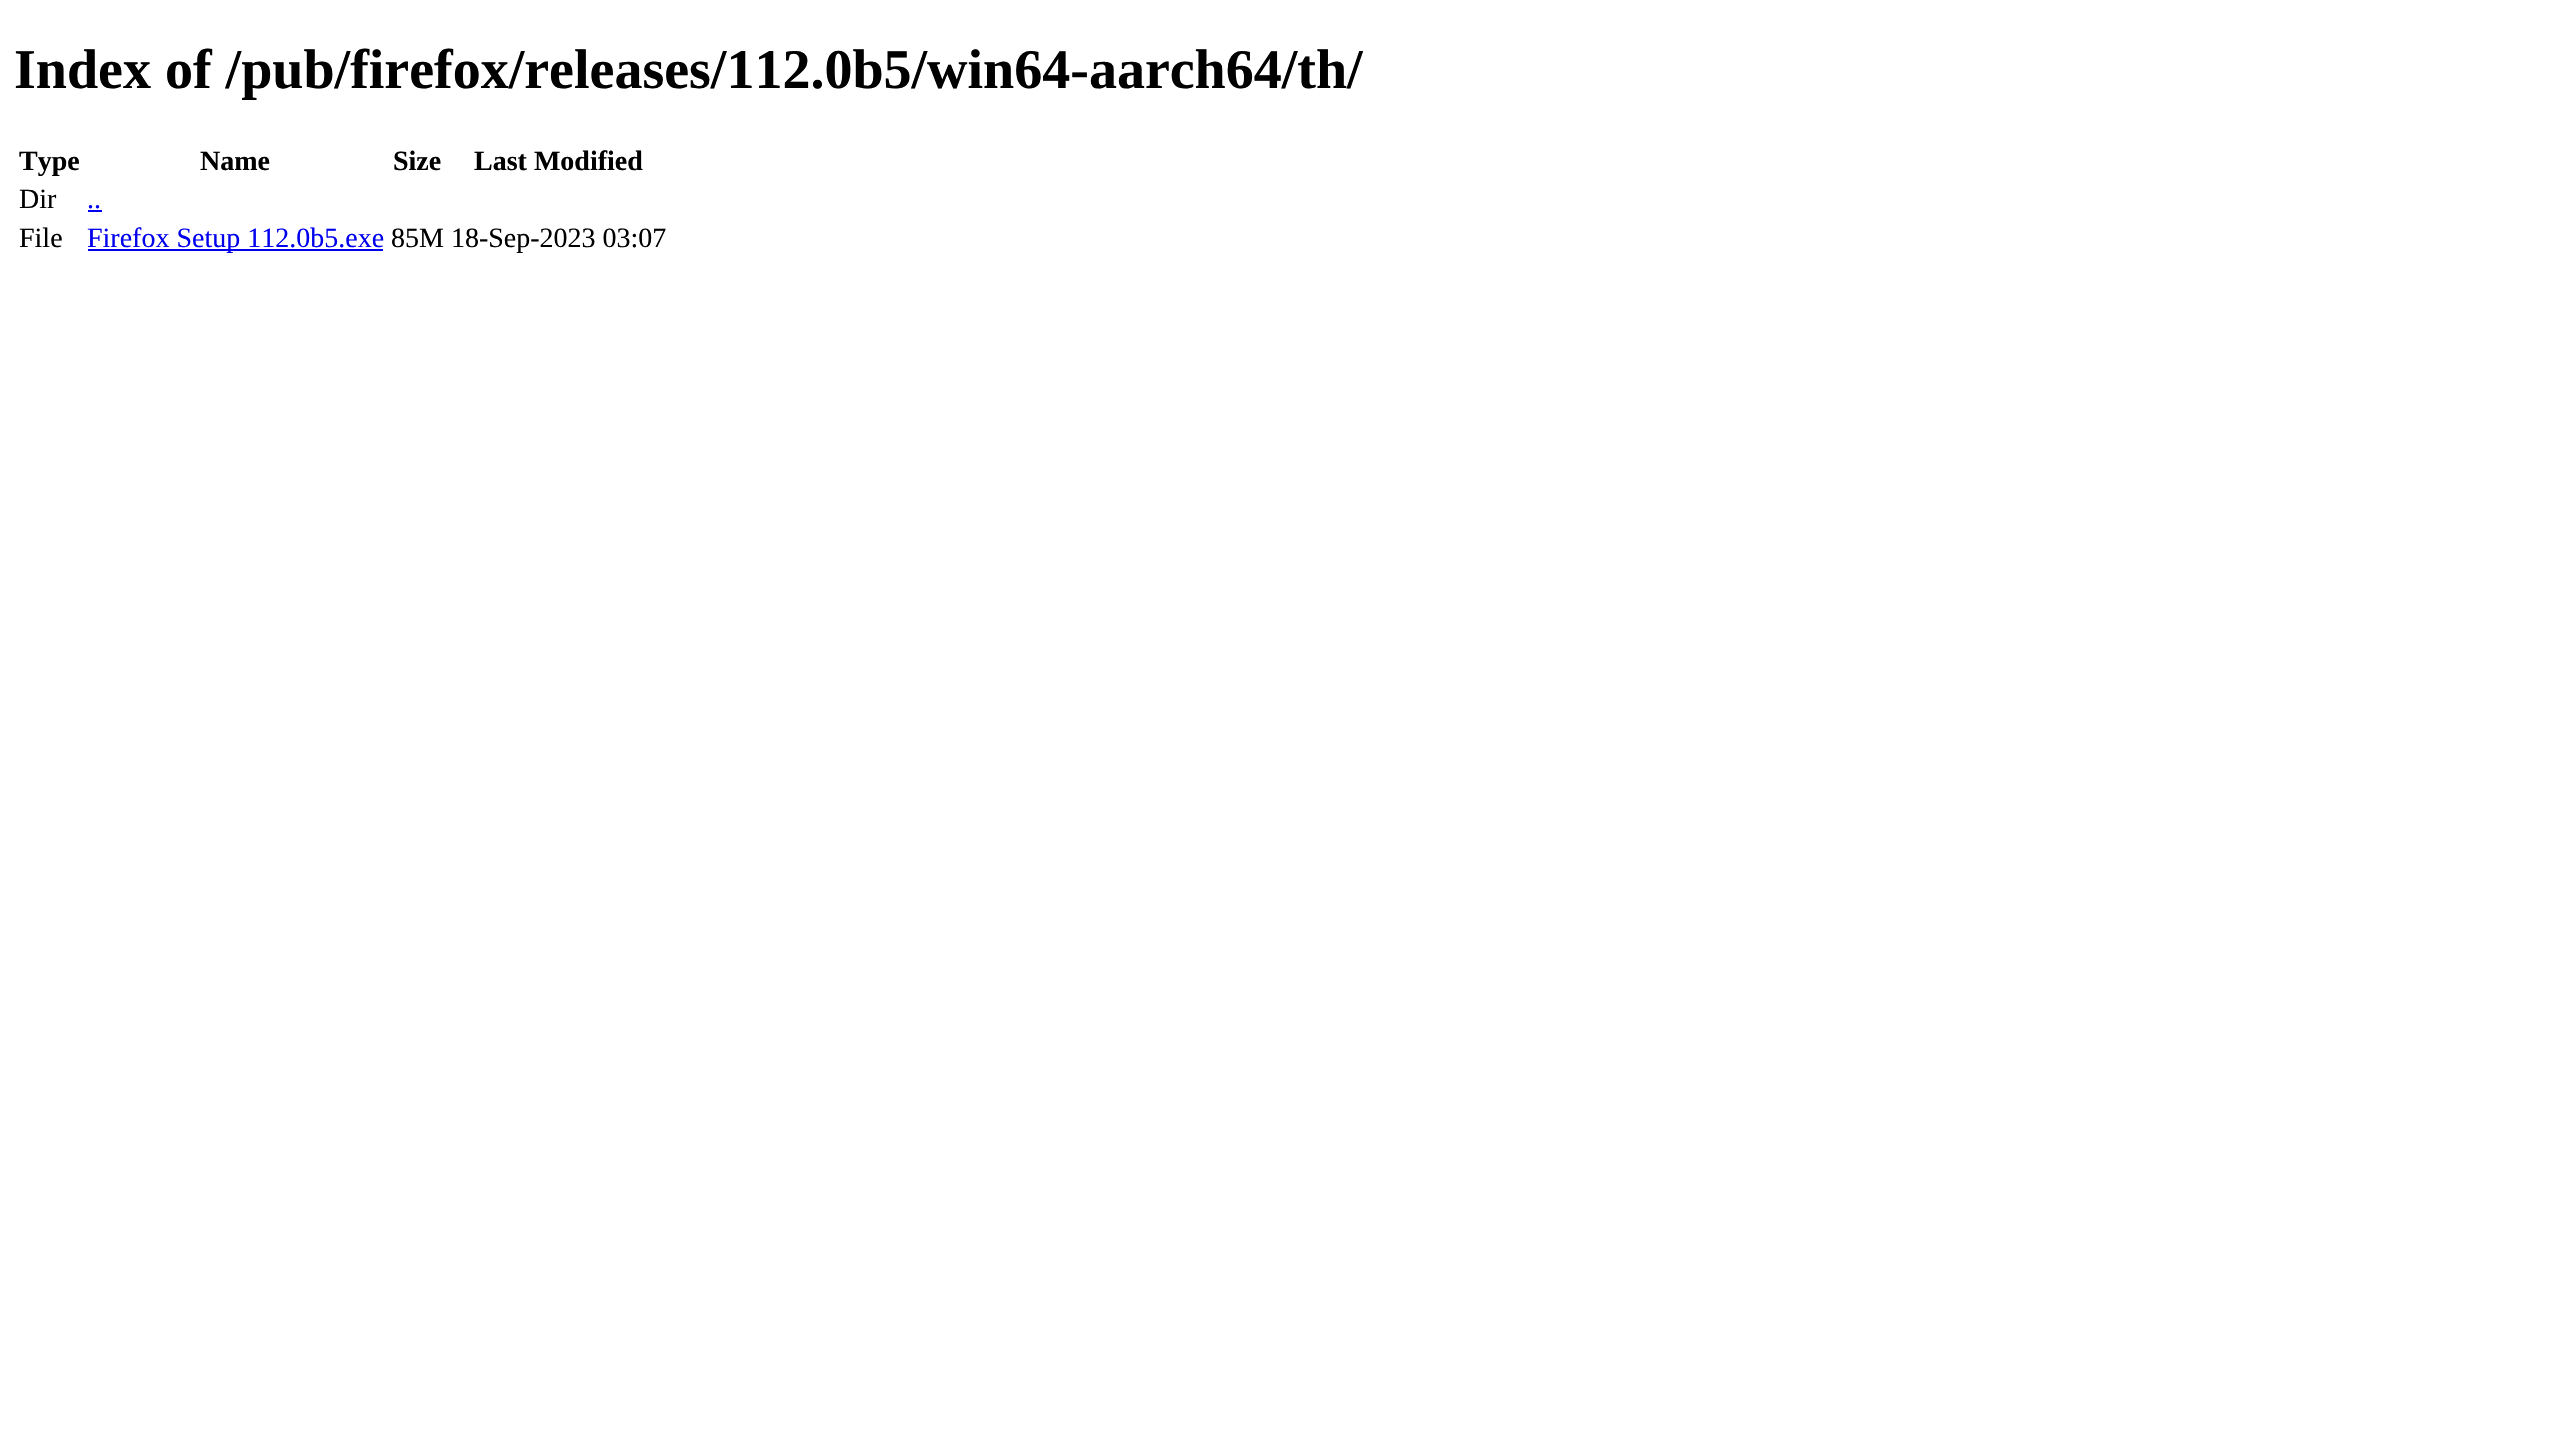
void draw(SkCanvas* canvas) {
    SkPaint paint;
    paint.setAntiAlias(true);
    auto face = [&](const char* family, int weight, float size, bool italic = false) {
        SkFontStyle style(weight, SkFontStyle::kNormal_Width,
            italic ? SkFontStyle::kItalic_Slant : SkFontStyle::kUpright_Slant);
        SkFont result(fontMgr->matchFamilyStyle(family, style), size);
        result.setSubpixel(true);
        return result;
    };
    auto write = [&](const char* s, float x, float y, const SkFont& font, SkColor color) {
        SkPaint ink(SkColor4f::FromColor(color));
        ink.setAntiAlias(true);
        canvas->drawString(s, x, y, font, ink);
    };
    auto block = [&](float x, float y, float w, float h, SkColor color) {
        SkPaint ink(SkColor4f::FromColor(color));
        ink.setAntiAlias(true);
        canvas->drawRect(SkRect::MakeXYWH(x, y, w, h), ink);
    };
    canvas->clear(SK_ColorWHITE);
    auto kFont1 = face("Liberation Serif", 700, 56);
    write("Index of /pub/firefox/releases/112.0b5/win64-aarch64/th/", 14, 88, kFont1, SK_ColorBLACK);
    auto kFont2 = face("Liberation Serif", 700, 28);
    write("Type", 19, 170, kFont2, SK_ColorBLACK);
    write("Name", 200, 170, kFont2, SK_ColorBLACK);
    write("Size", 393, 170, kFont2, SK_ColorBLACK);
    write("Last Modified", 474, 170, kFont2, SK_ColorBLACK);
    auto kFont3 = face("Liberation Serif", 400, 28);
    write("Dir", 19, 208, kFont3, SK_ColorBLACK);
    write("..", 87, 208, kFont3, SkColorSetRGB(0, 0, 238));
    block(88, 210, 14, 2, SkColorSetRGB(0, 0, 238));
    write("File", 19, 247, kFont3, SK_ColorBLACK);
    block(88, 249, 295, 2, SkColorSetRGB(0, 0, 238));
    write("Firefox Setup 112.0b5.exe", 87, 247, kFont3, SkColorSetRGB(0, 0, 238));
    write("85M 18-Sep-2023 03:07", 391, 247, kFont3, SK_ColorBLACK);
}
